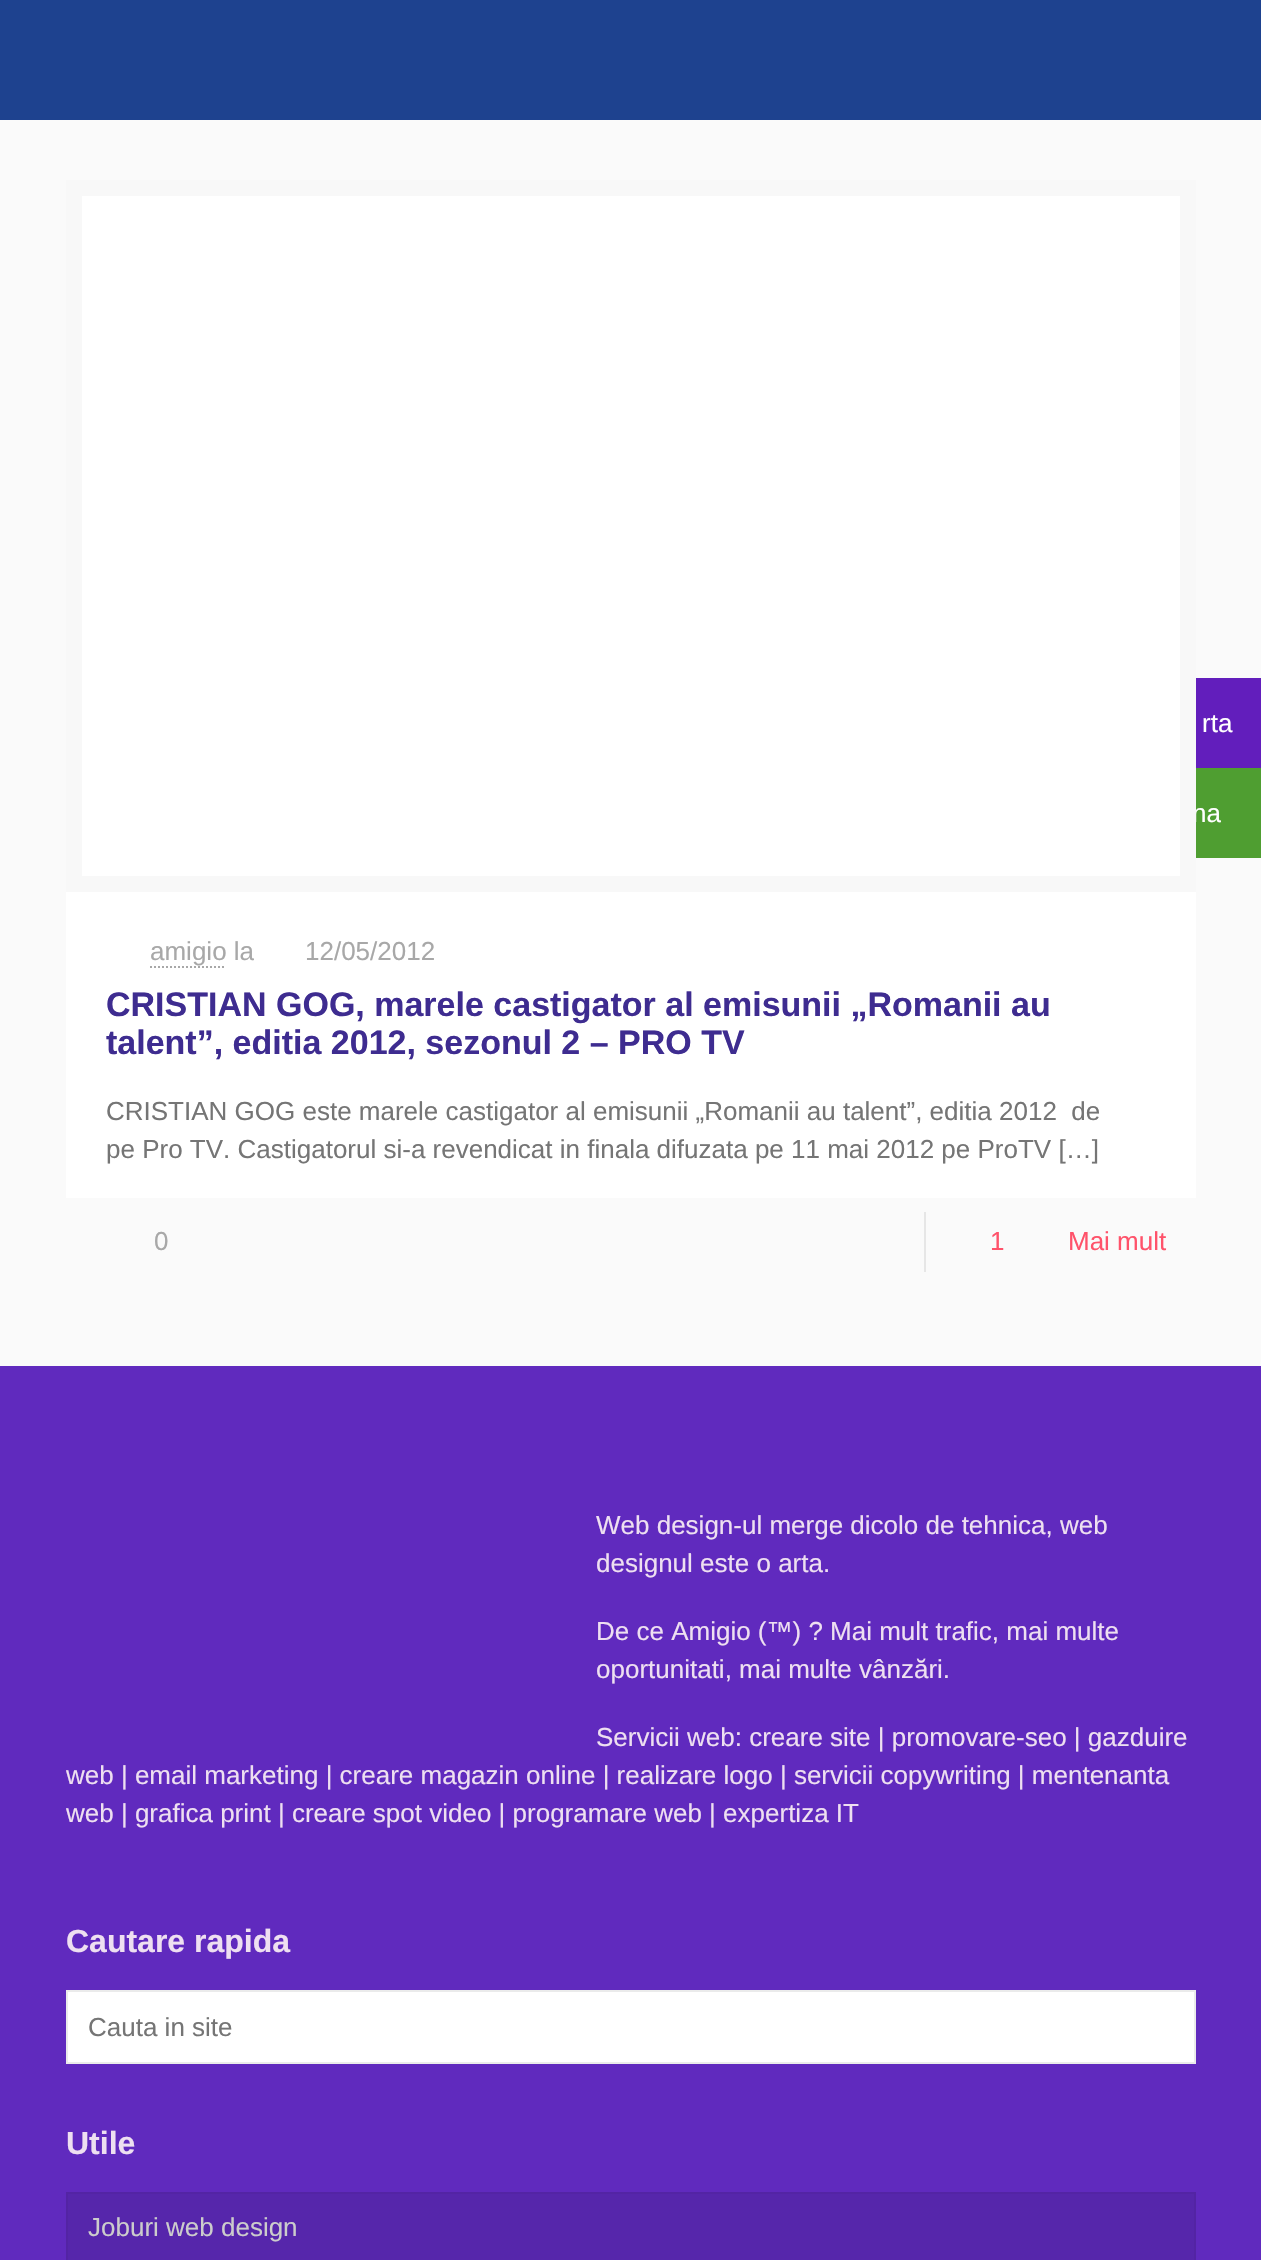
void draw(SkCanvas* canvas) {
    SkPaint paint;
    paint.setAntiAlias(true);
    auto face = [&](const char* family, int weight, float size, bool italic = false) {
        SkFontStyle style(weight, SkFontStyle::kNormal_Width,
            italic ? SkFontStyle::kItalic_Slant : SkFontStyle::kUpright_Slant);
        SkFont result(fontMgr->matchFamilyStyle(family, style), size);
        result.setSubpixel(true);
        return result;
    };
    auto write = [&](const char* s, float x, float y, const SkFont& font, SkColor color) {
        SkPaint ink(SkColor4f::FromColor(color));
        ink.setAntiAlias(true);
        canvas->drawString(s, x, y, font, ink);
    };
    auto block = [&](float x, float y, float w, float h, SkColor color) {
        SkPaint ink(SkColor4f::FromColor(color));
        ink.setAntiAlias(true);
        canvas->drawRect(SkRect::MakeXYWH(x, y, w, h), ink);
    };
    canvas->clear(SkColorSetRGB(250, 250, 250));
    block(1196, 678, 65, 90, SkColorSetRGB(98, 30, 188));
    auto kFont1 = face("Liberation Sans", 400, 26);
    write("rta", 1202, 732, kFont1, SK_ColorWHITE);
    block(1196, 768, 65, 90, SkColorSetRGB(79, 158, 49));
    write("na", 1192, 822, kFont1, SK_ColorWHITE);
    block(0, 0, 1261, 120, SkColorSetRGB(30, 66, 143));
    block(66, 196, 1130, 1002, SK_ColorWHITE);
    paint.setStyle(SkPaint::kStroke_Style);
    paint.setStrokeWidth(16);
    paint.setColor(SkColorSetRGB(248, 248, 248));
    canvas->drawRect(SkRect::MakeXYWH(74, 188, 1114, 696), paint);
    write("amigio la", 150, 960, kFont1, SkColorSetRGB(168, 168, 168));
    paint.setStrokeWidth(2);
    paint.setColor(SkColorSetRGB(168, 168, 168));
    paint.setPathEffect(SkDashPathEffect::Make({{2, 2}}, 0));
    canvas->drawPath(SkPathBuilder().moveTo(150, 967).lineTo(226, 967).detach(), paint);
    paint.setPathEffect(nullptr);
    write("12/05/2012", 305, 960, kFont1, SkColorSetRGB(168, 168, 168));
    auto kFont2 = face("Liberation Sans", 700, 34);
    write("CRISTIAN GOG, marele castigator al emisunii „Romanii au", 106, 1016, kFont2, SkColorSetRGB(62, 44, 144));
    write("talent”, editia 2012, sezonul 2 – PRO TV", 106, 1054, kFont2, SkColorSetRGB(62, 44, 144));
    write("CRISTIAN GOG este marele castigator al emisunii „Romanii au talent”, editia 2012  de", 106, 1120, kFont1, SkColorSetRGB(117, 117, 117));
    write("pe Pro TV. Castigatorul si-a revendicat in finala difuzata pe 11 mai 2012 pe ProTV […]", 106, 1158, kFont1, SkColorSetRGB(117, 117, 117));
    write("0", 154, 1250, kFont1, SkColorSetRGB(168, 168, 168));
    block(924, 1212, 2, 60, SkColorSetRGB(230, 230, 230));
    write("1", 990, 1250, kFont1, SkColorSetRGB(255, 82, 106));
    write("Mai mult", 1068, 1250, kFont1, SkColorSetRGB(255, 82, 106));
    block(0, 1366, 1261, 894, SkColorSetRGB(96, 42, 190));
    write("Web design-ul merge dicolo de tehnica, web", 596, 1534, kFont1, SkColorSetRGB(238, 223, 241));
    write("designul este o arta.", 596, 1572, kFont1, SkColorSetRGB(238, 223, 241));
    write("De ce Amigio (™) ? Mai mult trafic, mai multe", 596, 1640, kFont1, SkColorSetRGB(238, 223, 241));
    write("oportunitati, mai multe vânzări.", 596, 1678, kFont1, SkColorSetRGB(238, 223, 241));
    write("Servicii web: creare site | promovare-seo | gazduire", 596, 1746, kFont1, SkColorSetRGB(238, 223, 241));
    write("web | email marketing | creare magazin online | realizare logo | servicii copywriting | mentenanta", 66, 1784, kFont1, SkColorSetRGB(238, 223, 241));
    write("web | grafica print | creare spot video | programare web | expertiza IT", 66, 1822, kFont1, SkColorSetRGB(238, 223, 241));
    auto kFont3 = face("Liberation Sans", 700, 32);
    write("Cautare rapida", 66, 1952, kFont3, SkColorSetRGB(238, 223, 241));
    paint.setStyle(SkPaint::kFill_Style);
    paint.setColor(SK_ColorWHITE);
    canvas->drawRect(SkRect::MakeXYWH(67, 1991, 1128, 72), paint);
    paint.setStyle(SkPaint::kStroke_Style);
    paint.setColor(SkColorSetRGB(235, 235, 235));
    canvas->drawRect(SkRect::MakeXYWH(67, 1991, 1128, 72), paint);
    write("Cauta in site", 88, 2036, kFont1, SkColorSetRGB(117, 117, 117));
    write("Utile", 66, 2154, kFont3, SkColorSetRGB(238, 223, 241));
    paint.setStyle(SkPaint::kFill_Style);
    paint.setColor(SkColorSetRGB(86, 38, 171));
    canvas->drawRect(SkRect::MakeXYWH(67, 2193, 1128, 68), paint);
    paint.setStyle(SkPaint::kStroke_Style);
    paint.setColor(SkColorSetRGB(83, 36, 164));
    canvas->drawRect(SkRect::MakeXYWH(67, 2193, 1128, 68), paint);
    write("Joburi web design", 88, 2236, kFont1, SkColorSetRGB(204, 204, 204));
}
